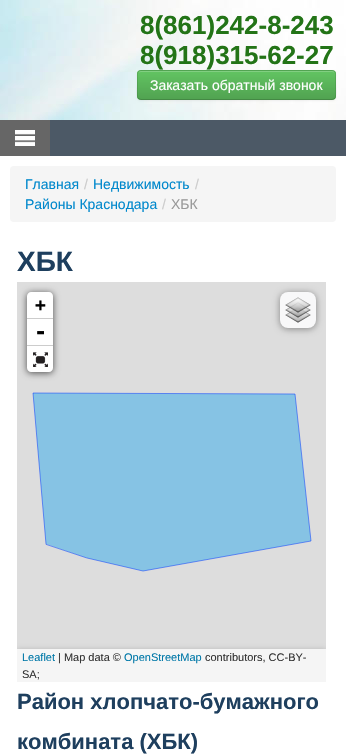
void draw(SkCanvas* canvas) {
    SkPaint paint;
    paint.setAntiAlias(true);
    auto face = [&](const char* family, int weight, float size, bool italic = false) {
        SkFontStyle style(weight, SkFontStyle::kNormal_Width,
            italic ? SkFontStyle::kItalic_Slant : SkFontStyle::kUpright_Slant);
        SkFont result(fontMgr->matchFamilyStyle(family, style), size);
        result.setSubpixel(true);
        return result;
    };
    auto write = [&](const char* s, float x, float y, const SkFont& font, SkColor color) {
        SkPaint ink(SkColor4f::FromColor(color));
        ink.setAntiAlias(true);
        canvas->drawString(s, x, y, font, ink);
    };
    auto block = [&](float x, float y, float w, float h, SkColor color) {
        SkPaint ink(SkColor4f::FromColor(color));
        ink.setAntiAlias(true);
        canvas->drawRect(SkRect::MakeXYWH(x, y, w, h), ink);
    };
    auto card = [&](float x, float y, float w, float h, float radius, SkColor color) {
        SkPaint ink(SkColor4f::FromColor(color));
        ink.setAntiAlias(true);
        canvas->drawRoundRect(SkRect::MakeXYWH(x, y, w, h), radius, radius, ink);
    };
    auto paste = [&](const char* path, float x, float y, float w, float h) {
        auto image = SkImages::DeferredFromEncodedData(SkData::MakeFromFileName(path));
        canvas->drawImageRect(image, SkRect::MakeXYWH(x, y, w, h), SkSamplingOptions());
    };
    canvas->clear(SK_ColorWHITE);
    paste("pic1.png", 0, 0, 346, 120);
    auto kFont1 = face("Liberation Sans", 700, 26);
    write("8(861)242-8-243", 140, 34, kFont1, SkColorSetRGB(35, 116, 23));
    write("8(918)315-62-27", 140, 64, kFont1, SkColorSetRGB(35, 116, 23));
    paint.setColor(SkColorSetARGB(13, 0, 0, 0));
    paint.setMaskFilter(SkMaskFilter::MakeBlur(kNormal_SkBlurStyle, 1));
    canvas->drawRoundRect(SkRect::MakeXYWH(137, 71, 199, 30), 4, 4, paint);
    paint.setMaskFilter(nullptr);
    card(137, 70, 199, 30, 4, SkColorSetRGB(91, 183, 91));
    canvas->save();
    canvas->clipPath(SkPathBuilder().moveTo(141, 70).lineTo(332, 70).cubicTo(334, 70, 336, 72, 336, 74).lineTo(336, 96).cubicTo(336, 98, 334, 100, 332, 100).lineTo(141, 100).cubicTo(139, 100, 137, 98, 137, 96).lineTo(137, 74).cubicTo(137, 72, 139, 70, 141, 70).close().detach(), true);
    {
        const SkColor colors[] = {SkColorSetRGB(98, 196, 98), SkColorSetRGB(81, 163, 81)};
        const float stops[] = {0, 1};
        const SkPoint ends[] = {{237, 71}, {237, 99}};
        paint.setShader(SkGradientShader::MakeLinear(ends, colors, stops, 2, SkTileMode::kClamp));
        paint.setAlpha(255);
    }
    canvas->drawRect(SkRect::MakeXYWH(137, 71, 199, 28), paint);
    canvas->restore();
    paint.setShader(nullptr);
    paint.setColor(SkColorSetRGB(129, 207, 129));
    canvas->drawPath(SkPathBuilder().moveTo(141, 72).lineTo(332, 72).cubicTo(334, 72, 335, 73, 335, 75).cubicTo(335, 73, 334, 71, 332, 71).lineTo(141, 71).cubicTo(139, 71, 138, 73, 138, 75).cubicTo(138, 73, 139, 72, 141, 72).close().detach(), paint);
    paint.setStyle(SkPaint::kStroke_Style);
    paint.setStrokeWidth(1);
    paint.setColor(SkColorSetARGB(64, 0, 0, 0));
    canvas->drawPath(SkPathBuilder().moveTo(334.5f, 98.5f).cubicTo(334, 99, 333, 99.5f, 332, 99.5f).lineTo(141, 99.5f).cubicTo(140, 99.5f, 139, 99, 138.5f, 98.5f).detach(), paint);
    paint.setColor(SkColorSetARGB(26, 0, 0, 0));
    canvas->drawPath(SkPathBuilder().moveTo(138.5f, 98.5f).cubicTo(136.5f, 96.5f, 137.5f, 88, 137.5f, 85).lineTo(137.5f, 77.5f).cubicTo(137.5f, 75, 137, 70.5f, 141, 70.5f).lineTo(332, 70.5f).cubicTo(336, 70.5f, 335.5f, 75, 335.5f, 77.5f).lineTo(335.5f, 85).cubicTo(335.5f, 88, 336.5f, 96.5f, 334.5f, 98.5f).detach(), paint);
    auto kFont2 = face("Liberation Sans", 400, 14);
    write("Заказать обратный звонок", 150, 90, kFont2, SK_ColorWHITE);
    block(50, 120, 296, 36, SkColorSetRGB(76, 89, 102));
    block(0, 120, 50, 36, SkColorSetRGB(102, 102, 102));
    paste("pic2.png", 15, 130, 20, 16);
    card(10, 166, 326, 56, 4, SkColorSetRGB(245, 245, 245));
    write("Главная", 25, 189, kFont2, SkColorSetRGB(0, 136, 204));
    write("/", 84, 189, kFont2, SkColorSetRGB(204, 204, 204));
    write("Недвижимость", 93, 189, kFont2, SkColorSetRGB(0, 136, 204));
    write("/", 195, 189, kFont2, SkColorSetRGB(204, 204, 204));
    write("Районы Краснодара", 25, 209, kFont2, SkColorSetRGB(0, 136, 204));
    write("/", 162, 209, kFont2, SkColorSetRGB(204, 204, 204));
    write("ХБК", 171, 209, kFont2, SkColorSetRGB(153, 153, 153));
    auto kFont3 = face("Liberation Sans", 700, 28);
    write("ХБК", 17, 271, kFont3, SkColorSetRGB(30, 63, 94));
    block(17, 282, 309, 367, SkColorSetRGB(221, 221, 221));
    paint.setStyle(SkPaint::kFill_Style);
    paint.setColor(SkColorSetARGB(166, 0, 0, 0));
    paint.setMaskFilter(SkMaskFilter::MakeBlur(kNormal_SkBlurStyle, 3.5f));
    canvas->drawRoundRect(SkRect::MakeXYWH(27, 293, 26, 80), 4, 4, paint);
    paint.setMaskFilter(nullptr);
    paint.setColor(SK_ColorWHITE);
    canvas->drawPath(SkPathBuilder().moveTo(31, 292).lineTo(49, 292).cubicTo(51, 292, 53, 294, 53, 296).lineTo(53, 319).lineTo(27, 319).lineTo(27, 296).cubicTo(27, 294, 29, 292, 31, 292).close().detach(), paint);
    block(27, 318, 26, 1, SkColorSetRGB(204, 204, 204));
    auto kFont4 = face("DejaVu Sans Mono", 700, 18);
    write("+", 35, 311, kFont4, SK_ColorBLACK);
    block(27, 319, 26, 26, SK_ColorWHITE);
    block(27, 345, 26, 1, SkColorSetRGB(204, 204, 204));
    auto kFont5 = face("DejaVu Sans Mono", 700, 22);
    write("-", 34, 339, kFont5, SK_ColorBLACK);
    canvas->drawPath(SkPathBuilder().moveTo(27, 346).lineTo(53, 346).lineTo(53, 368).cubicTo(53, 370, 51, 372, 49, 372).lineTo(31, 372).cubicTo(29, 372, 27, 370, 27, 368).close().detach(), paint);
    paste("pic3.png", 33, 352, 15, 15);
    paint.setColor(SkColorSetARGB(102, 0, 0, 0));
    paint.setMaskFilter(SkMaskFilter::MakeBlur(kNormal_SkBlurStyle, 3.5f));
    canvas->drawRoundRect(SkRect::MakeXYWH(280, 293, 36, 36), 8, 8, paint);
    paint.setMaskFilter(nullptr);
    card(280, 292, 36, 36, 8, SkColorSetRGB(248, 248, 249));
    paste("pic4.png", 285, 297, 26, 26);
    canvas->save();
    canvas->clipRect(SkRect::MakeXYWH(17, 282, 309, 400));
    paint.setColor(SkColorSetRGB(187, 187, 187));
    paint.setMaskFilter(SkMaskFilter::MakeBlur(kNormal_SkBlurStyle, 2.5f));
    canvas->drawRect(SkRect::MakeXYWH(17, 649, 309, 33), paint);
    paint.setMaskFilter(nullptr);
    canvas->restore();
    block(17, 649, 309, 33, SkColorSetRGB(245, 245, 245));
    auto kFont6 = face("Liberation Sans", 400, 11);
    write("Leaflet", 22, 661, kFont6, SkColorSetRGB(0, 120, 168));
    write("| Map data ©", 58, 661, kFont6, SkColorSetRGB(51, 51, 51));
    write("OpenStreetMap", 124, 661, kFont6, SkColorSetRGB(0, 120, 168));
    write("contributors, CC-BY-", 205, 661, kFont6, SkColorSetRGB(51, 51, 51));
    write("SA;", 22, 678, kFont6, SkColorSetRGB(51, 51, 51));
    paint.setColor(SkColorSetRGB(134, 195, 228));
    canvas->drawPath(SkPathBuilder(SkPathFillType::kEvenOdd).moveTo(46, 544).lineTo(33, 393).lineTo(295, 394).lineTo(311, 541).lineTo(143, 571).lineTo(87, 558).close().detach(), paint);
    paint.setStyle(SkPaint::kStroke_Style);
    paint.setStrokeCap(SkPaint::kRound_Cap);
    paint.setStrokeJoin(SkPaint::kRound_Join);
    paint.setColor(SkColorSetARGB(128, 0, 51, 255));
    canvas->drawPath(SkPathBuilder(SkPathFillType::kEvenOdd).moveTo(46, 544).lineTo(33, 393).lineTo(295, 394).lineTo(311, 541).lineTo(143, 571).lineTo(87, 558).close().detach(), paint);
    auto kFont7 = face("Liberation Sans", 700, 22);
    write("Район хлопчато-бумажного", 17, 709, kFont7, SkColorSetRGB(30, 63, 94));
    write("комбината (ХБК)", 17, 749, kFont7, SkColorSetRGB(30, 63, 94));
}
